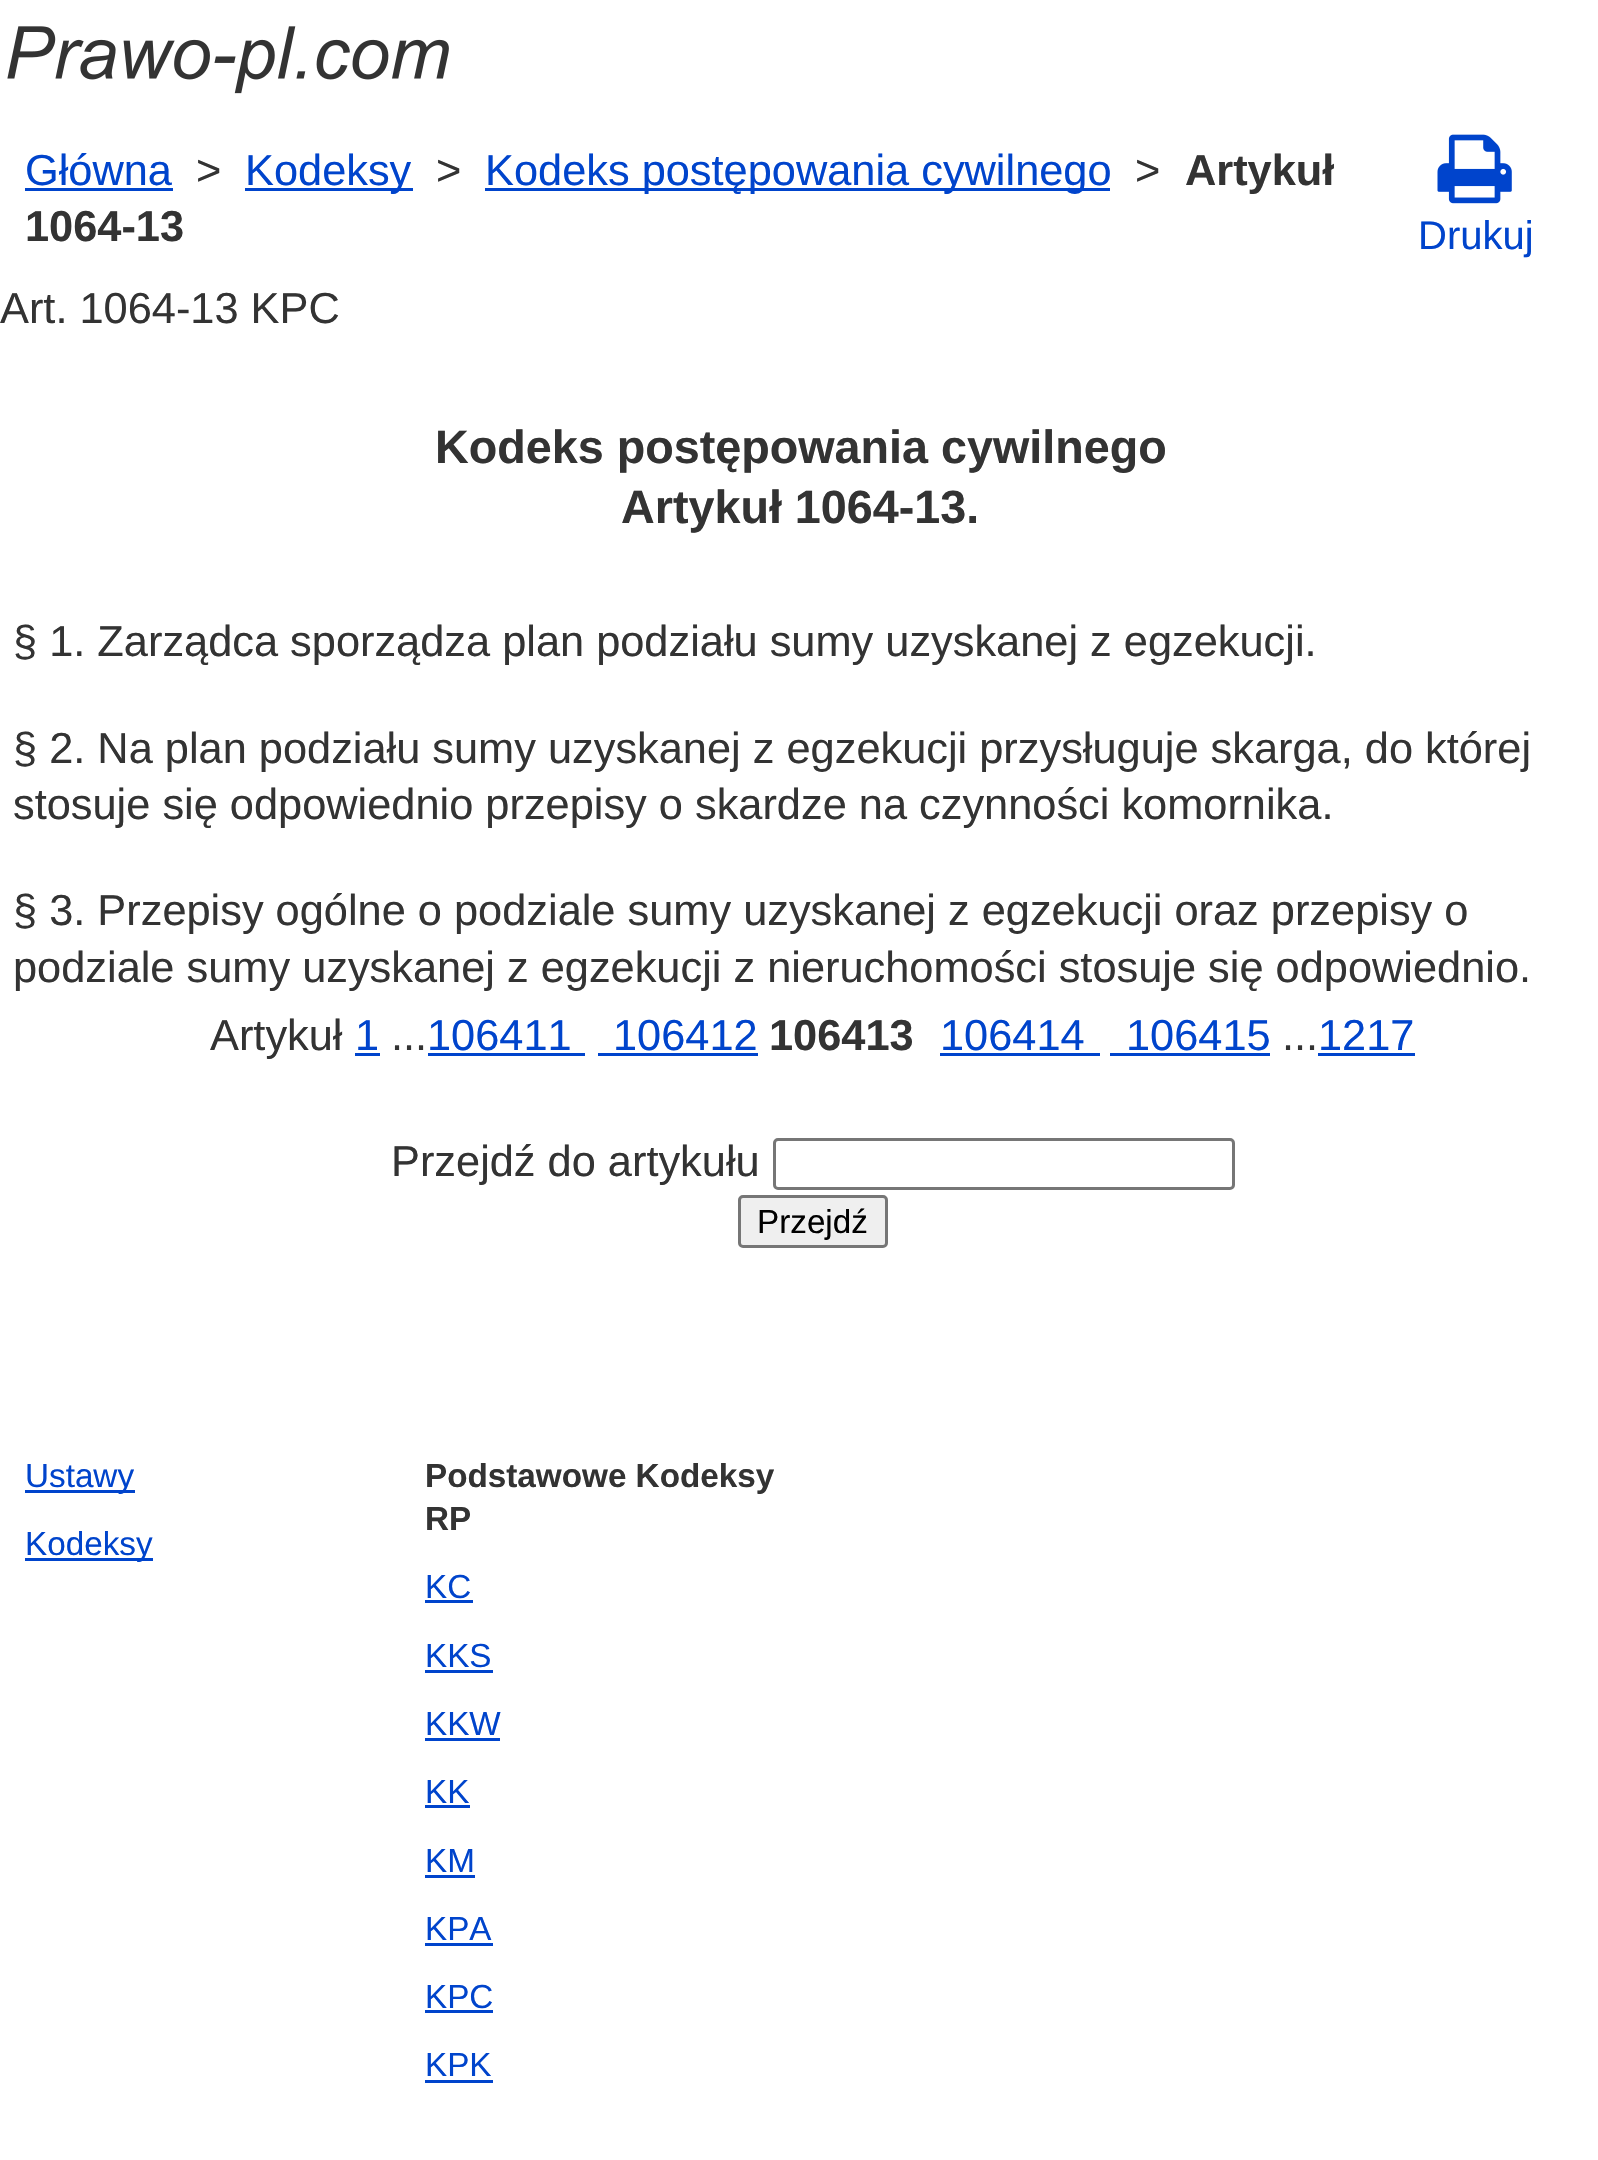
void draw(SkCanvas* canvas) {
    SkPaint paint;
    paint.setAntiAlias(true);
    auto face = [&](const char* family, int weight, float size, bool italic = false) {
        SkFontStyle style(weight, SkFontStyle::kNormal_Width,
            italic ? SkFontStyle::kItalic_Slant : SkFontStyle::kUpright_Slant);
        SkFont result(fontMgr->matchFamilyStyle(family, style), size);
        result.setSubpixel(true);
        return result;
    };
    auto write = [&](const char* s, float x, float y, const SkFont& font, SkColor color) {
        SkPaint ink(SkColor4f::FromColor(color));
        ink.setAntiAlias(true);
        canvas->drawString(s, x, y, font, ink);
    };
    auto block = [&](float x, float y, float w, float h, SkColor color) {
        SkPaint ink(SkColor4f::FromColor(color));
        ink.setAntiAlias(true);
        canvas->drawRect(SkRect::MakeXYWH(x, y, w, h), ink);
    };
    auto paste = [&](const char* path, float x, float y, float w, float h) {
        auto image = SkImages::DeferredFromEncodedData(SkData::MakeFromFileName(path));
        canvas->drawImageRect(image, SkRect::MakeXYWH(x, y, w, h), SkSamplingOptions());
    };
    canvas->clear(SK_ColorWHITE);
    paste("pic1.png", 7, 26, 442, 68);
    auto kFont1 = face("Liberation Sans", 400, 43.35f);
    write("Główna", 25, 185, kFont1, SkColorSetRGB(0, 68, 204));
    block(25, 188, 148, 3, SkColorSetRGB(0, 68, 204));
    write(">", 196, 185, kFont1, SkColorSetRGB(51, 51, 51));
    block(245, 188, 168, 3, SkColorSetRGB(0, 68, 204));
    write("Kodeksy", 245, 185, kFont1, SkColorSetRGB(0, 68, 204));
    write(">", 436, 185, kFont1, SkColorSetRGB(51, 51, 51));
    block(485, 188, 625, 3, SkColorSetRGB(0, 68, 204));
    write("Kodeks postępowania cywilnego", 485, 185, kFont1, SkColorSetRGB(0, 68, 204));
    write(">", 1135, 185, kFont1, SkColorSetRGB(51, 51, 51));
    auto kFont2 = face("Liberation Sans", 700, 43.35f);
    write("Artykuł", 1185, 185, kFont2, SkColorSetRGB(51, 51, 51));
    write("1064-13", 25, 241, kFont2, SkColorSetRGB(51, 51, 51));
    paste("pic2.png", 1437, 134, 75, 70);
    auto kFont3 = face("Liberation Sans", 400, 40);
    write("Drukuj", 1418, 249, kFont3, SkColorSetRGB(0, 68, 204));
    write("Art. 1064-13 KPC", 0, 323, kFont1, SkColorSetRGB(51, 51, 51));
    auto kFont4 = face("Liberation Sans", 700, 46.7f);
    write("Kodeks postępowania cywilnego", 435, 463, kFont4, SkColorSetRGB(51, 51, 51));
    write("Artykuł 1064-13.", 621, 523, kFont4, SkColorSetRGB(51, 51, 51));
    write("§ 1. Zarządca sporządza plan podziału sumy uzyskanej z egzekucji.", 13, 656, kFont1, SkColorSetRGB(51, 51, 51));
    write("§ 2. Na plan podziału sumy uzyskanej z egzekucji przysługuje skarga, do której", 13, 763, kFont1, SkColorSetRGB(51, 51, 51));
    write("stosuje się odpowiednio przepisy o skardze na czynności komornika.", 13, 819, kFont1, SkColorSetRGB(51, 51, 51));
    write("§ 3. Przepisy ogólne o podziale sumy uzyskanej z egzekucji oraz przepisy o", 13, 925, kFont1, SkColorSetRGB(51, 51, 51));
    write("podziale sumy uzyskanej z egzekucji z nieruchomości stosuje się odpowiednio.", 13, 982, kFont1, SkColorSetRGB(51, 51, 51));
    write("Artykuł", 210, 1050, kFont1, SkColorSetRGB(51, 51, 51));
    write("1", 355, 1050, kFont1, SkColorSetRGB(0, 68, 204));
    block(355, 1053, 25, 3, SkColorSetRGB(0, 68, 204));
    write("...", 391, 1050, kFont1, SkColorSetRGB(51, 51, 51));
    write("1064‑11", 427, 1050, kFont1, SkColorSetRGB(0, 68, 204));
    write("1064‑12", 613, 1050, kFont1, SkColorSetRGB(0, 68, 204));
    block(428, 1053, 157, 3, SkColorSetRGB(0, 68, 204));
    write("1064‑13", 769, 1050, kFont2, SkColorSetRGB(51, 51, 51));
    write("1064‑14", 940, 1050, kFont1, SkColorSetRGB(0, 68, 204));
    write("1064‑15", 1126, 1050, kFont1, SkColorSetRGB(0, 68, 204));
    block(940, 1053, 160, 3, SkColorSetRGB(0, 68, 204));
    write("...", 1282, 1050, kFont1, SkColorSetRGB(51, 51, 51));
    write("1217", 1318, 1050, kFont1, SkColorSetRGB(0, 68, 204));
    block(1318, 1053, 97, 3, SkColorSetRGB(0, 68, 204));
    block(598, 1053, 160, 3, SkColorSetRGB(0, 68, 204));
    block(1110, 1053, 160, 3, SkColorSetRGB(0, 68, 204));
    write("Przejdź do artykułu", 391, 1176, kFont1, SkColorSetRGB(51, 51, 51));
    paint.setStyle(SkPaint::kStroke_Style);
    paint.setStrokeWidth(3);
    paint.setColor(SkColorSetRGB(118, 118, 118));
    canvas->drawRoundRect(SkRect::MakeXYWH(774.5f, 1139.5f, 459, 49), 3.5f, 3.5f, paint);
    paint.setStyle(SkPaint::kFill_Style);
    paint.setColor(SkColorSetRGB(239, 239, 239));
    canvas->drawRoundRect(SkRect::MakeXYWH(739.5f, 1196.5f, 147, 50), 3.5f, 3.5f, paint);
    paint.setStyle(SkPaint::kStroke_Style);
    paint.setColor(SkColorSetRGB(118, 118, 118));
    canvas->drawRoundRect(SkRect::MakeXYWH(739.5f, 1196.5f, 147, 50), 3.5f, 3.5f, paint);
    auto kFont5 = face("Liberation Sans", 400, 33.25f);
    write("Przejdź", 757, 1233, kFont5, SK_ColorBLACK);
    block(25, 1490, 110, 3, SkColorSetRGB(0, 68, 204));
    write("Ustawy", 25, 1487, kFont5, SkColorSetRGB(0, 68, 204));
    block(25, 1558, 128, 3, SkColorSetRGB(0, 68, 204));
    write("Kodeksy", 25, 1555, kFont5, SkColorSetRGB(0, 68, 204));
    auto kFont6 = face("Liberation Sans", 700, 33.25f);
    write("Podstawowe Kodeksy", 425, 1487, kFont6, SkColorSetRGB(51, 51, 51));
    write("RP", 425, 1530, kFont6, SkColorSetRGB(51, 51, 51));
    write("KC", 425, 1598, kFont5, SkColorSetRGB(0, 68, 204));
    block(425, 1600, 48, 3, SkColorSetRGB(0, 68, 204));
    write("KKS", 425, 1667, kFont5, SkColorSetRGB(0, 68, 204));
    block(425, 1670, 68, 3, SkColorSetRGB(0, 68, 204));
    write("KKW", 425, 1735, kFont5, SkColorSetRGB(0, 68, 204));
    block(425, 1738, 75, 3, SkColorSetRGB(0, 68, 204));
    write("KK", 425, 1803, kFont5, SkColorSetRGB(0, 68, 204));
    block(425, 1805, 45, 3, SkColorSetRGB(0, 68, 204));
    write("KM", 425, 1872, kFont5, SkColorSetRGB(0, 68, 204));
    block(425, 1875, 50, 3, SkColorSetRGB(0, 68, 204));
    write("KPA", 425, 1940, kFont5, SkColorSetRGB(0, 68, 204));
    block(425, 1943, 68, 3, SkColorSetRGB(0, 68, 204));
    write("KPC", 425, 2008, kFont5, SkColorSetRGB(0, 68, 204));
    block(425, 2010, 68, 3, SkColorSetRGB(0, 68, 204));
    write("KPK", 425, 2076, kFont5, SkColorSetRGB(0, 68, 204));
    block(425, 2080, 68, 3, SkColorSetRGB(0, 68, 204));
}
